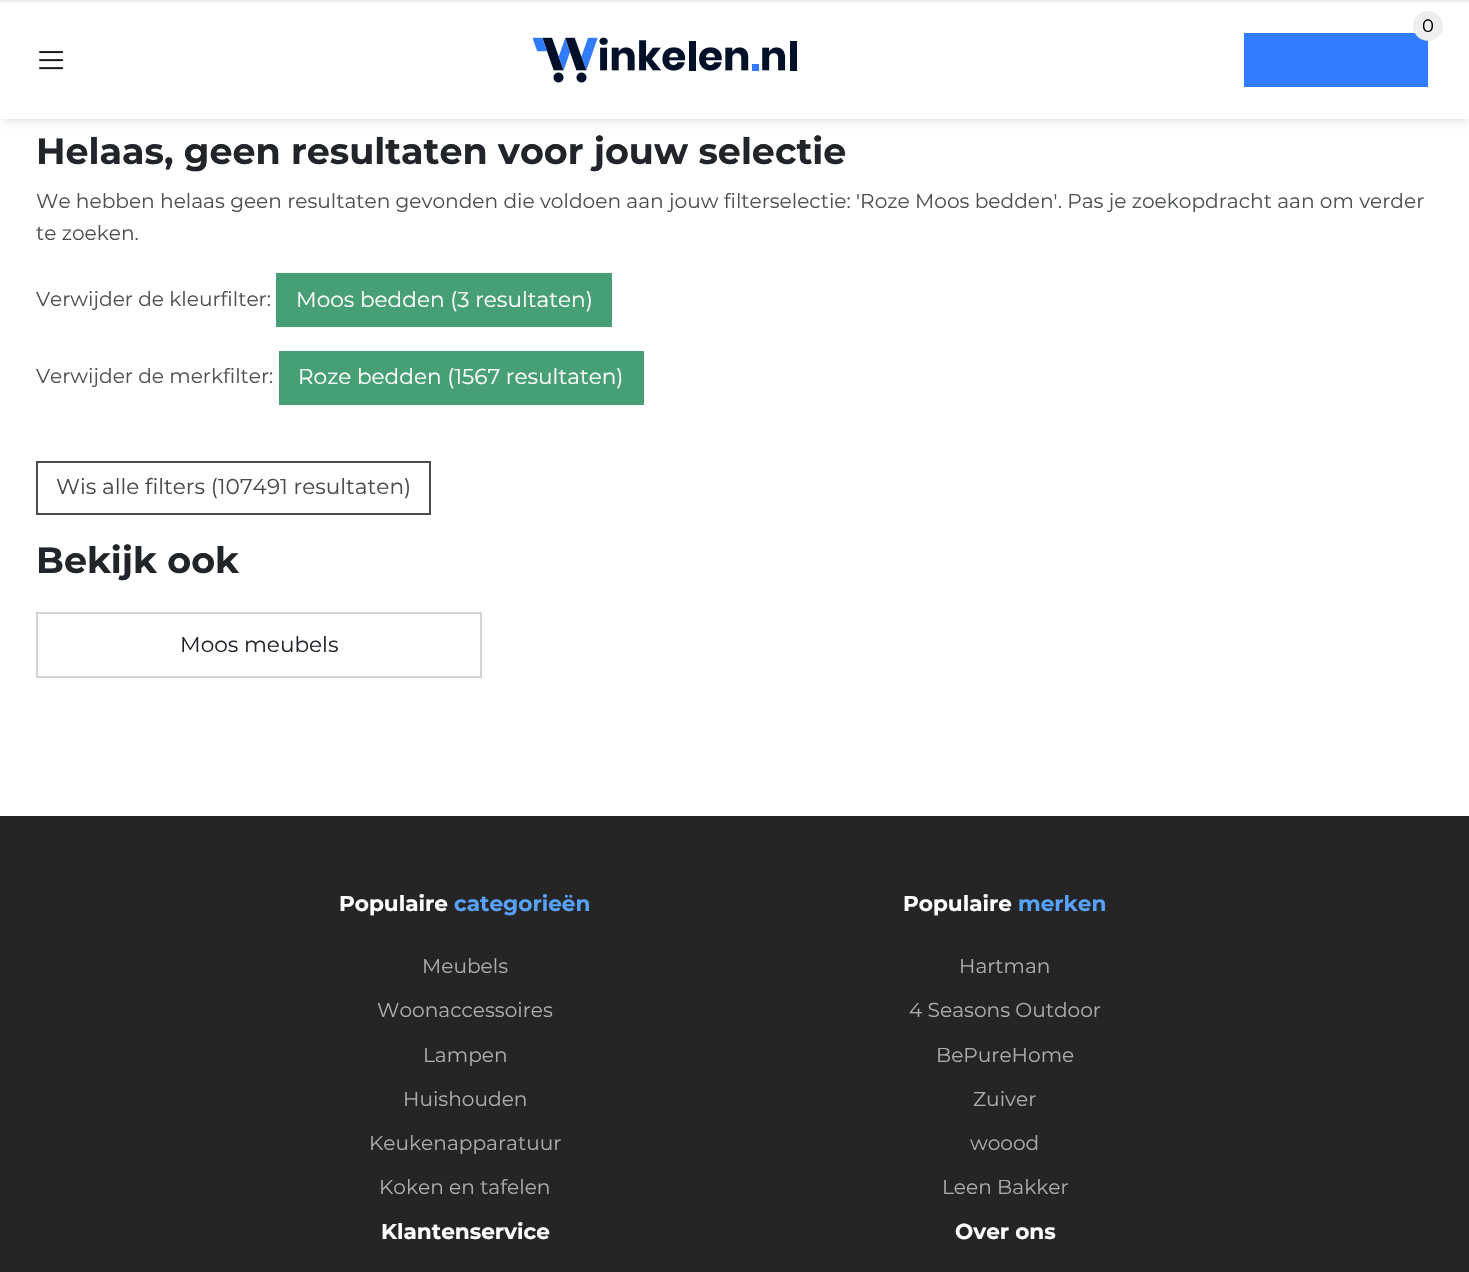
void draw(SkCanvas* canvas) {
    SkPaint paint;
    paint.setAntiAlias(true);
    auto face = [&](const char* family, int weight, float size, bool italic = false) {
        SkFontStyle style(weight, SkFontStyle::kNormal_Width,
            italic ? SkFontStyle::kItalic_Slant : SkFontStyle::kUpright_Slant);
        SkFont result(fontMgr->matchFamilyStyle(family, style), size);
        result.setSubpixel(true);
        return result;
    };
    auto write = [&](const char* s, float x, float y, const SkFont& font, SkColor color) {
        SkPaint ink(SkColor4f::FromColor(color));
        ink.setAntiAlias(true);
        canvas->drawString(s, x, y, font, ink);
    };
    auto block = [&](float x, float y, float w, float h, SkColor color) {
        SkPaint ink(SkColor4f::FromColor(color));
        ink.setAntiAlias(true);
        canvas->drawRect(SkRect::MakeXYWH(x, y, w, h), ink);
    };
    auto paste = [&](const char* path, float x, float y, float w, float h) {
        auto image = SkImages::DeferredFromEncodedData(SkData::MakeFromFileName(path));
        canvas->drawImageRect(image, SkRect::MakeXYWH(x, y, w, h), SkSamplingOptions());
    };
    canvas->clear(SK_ColorWHITE);
    paint.setColor(SkColorSetARGB(38, 0, 0, 0));
    paint.setMaskFilter(SkMaskFilter::MakeBlur(kNormal_SkBlurStyle, 4));
    canvas->drawRect(SkRect::MakeXYWH(2, 5, 1467, 115), paint);
    paint.setMaskFilter(nullptr);
    block(0, 2, 1469, 117, SK_ColorWHITE);
    block(0, 0, 1469, 2, SkColorSetRGB(238, 238, 238));
    block(1244, 33, 184, 54, SkColorSetRGB(49, 123, 255));
    paint.setColor(SkColorSetRGB(238, 238, 238));
    canvas->drawCircle(1428, 26, 15, paint);
    auto kFont1 = face("Montserrat", 400, 18);
    write("0", 1422, 32, kFont1, SK_ColorBLACK);
    paste("pic1.png", 39, 51, 25, 19);
    paste("pic2.png", 533, 37, 264, 46);
    auto kFont2 = face("Montserrat", 700, 36.5f);
    write("Helaas, geen resultaten voor jouw selectie", 36, 164, kFont2, SkColorSetRGB(33, 37, 41));
    auto kFont3 = face("Montserrat", 400, 20.15f);
    write("We hebben helaas geen resultaten gevonden die voldoen aan jouw filterselectie: 'Roze Moos bedden'. Pas je zoekopdracht aan om verder", 36, 208, kFont3, SkColorSetRGB(77, 81, 84));
    write("te zoeken.", 36, 240, kFont3, SkColorSetRGB(77, 81, 84));
    write("Verwijder de kleurfilter:", 36, 306, kFont3, SkColorSetRGB(77, 81, 84));
    block(276, 273, 336, 54, SkColorSetRGB(71, 159, 118));
    auto kFont4 = face("Montserrat", 400, 21.6f);
    write("Moos bedden (3 resultaten)", 296, 307, kFont4, SK_ColorWHITE);
    write("Verwijder de merkfilter:", 36, 383, kFont3, SkColorSetRGB(77, 81, 84));
    block(279, 351, 365, 54, SkColorSetRGB(71, 159, 118));
    write("Roze bedden (1567 resultaten)", 298, 384, kFont4, SK_ColorWHITE);
    paint.setStyle(SkPaint::kStroke_Style);
    paint.setStrokeWidth(2);
    paint.setColor(SkColorSetRGB(74, 74, 74));
    canvas->drawRect(SkRect::MakeXYWH(37, 462, 393, 52), paint);
    write("Wis alle filters (107491 resultaten)", 56, 494, kFont4, SkColorSetRGB(74, 74, 74));
    write("Bekijk ook", 36, 573, kFont2, SkColorSetRGB(33, 37, 41));
    paint.setColor(SkColorSetRGB(211, 211, 211));
    canvas->drawRect(SkRect::MakeXYWH(37, 613, 444, 64), paint);
    write("Moos meubels", 180, 652, kFont4, SkColorSetRGB(33, 37, 41));
    block(0, 816, 1469, 456, SkColorSetRGB(37, 37, 37));
    auto kFont5 = face("Montserrat", 700, 21.6f);
    write("Populaire", 339, 911, kFont5, SK_ColorWHITE);
    write("categorieën", 454, 911, kFont5, SkColorSetRGB(87, 161, 255));
    write("Meubels", 422, 973, kFont3, SkColorSetRGB(172, 172, 172));
    write("Woonaccessoires", 377, 1017, kFont3, SkColorSetRGB(172, 172, 172));
    write("Lampen", 423, 1062, kFont3, SkColorSetRGB(172, 172, 172));
    write("Huishouden", 403, 1106, kFont3, SkColorSetRGB(172, 172, 172));
    write("Keukenapparatuur", 369, 1150, kFont3, SkColorSetRGB(172, 172, 172));
    write("Koken en tafelen", 379, 1194, kFont3, SkColorSetRGB(172, 172, 172));
    write("Populaire", 903, 911, kFont5, SK_ColorWHITE);
    write("merken", 1018, 911, kFont5, SkColorSetRGB(87, 161, 255));
    write("Hartman", 959, 973, kFont3, SkColorSetRGB(172, 172, 172));
    write("4 Seasons Outdoor", 909, 1017, kFont3, SkColorSetRGB(172, 172, 172));
    write("BePureHome", 936, 1062, kFont3, SkColorSetRGB(172, 172, 172));
    write("Zuiver", 973, 1106, kFont3, SkColorSetRGB(172, 172, 172));
    write("woood", 970, 1150, kFont3, SkColorSetRGB(172, 172, 172));
    write("Leen Bakker", 942, 1194, kFont3, SkColorSetRGB(172, 172, 172));
    write("Klantenservice", 381, 1239, kFont5, SK_ColorWHITE);
    write("Over ons", 955, 1239, kFont5, SK_ColorWHITE);
}
